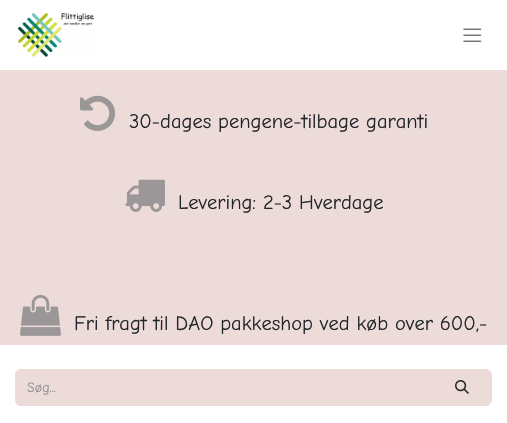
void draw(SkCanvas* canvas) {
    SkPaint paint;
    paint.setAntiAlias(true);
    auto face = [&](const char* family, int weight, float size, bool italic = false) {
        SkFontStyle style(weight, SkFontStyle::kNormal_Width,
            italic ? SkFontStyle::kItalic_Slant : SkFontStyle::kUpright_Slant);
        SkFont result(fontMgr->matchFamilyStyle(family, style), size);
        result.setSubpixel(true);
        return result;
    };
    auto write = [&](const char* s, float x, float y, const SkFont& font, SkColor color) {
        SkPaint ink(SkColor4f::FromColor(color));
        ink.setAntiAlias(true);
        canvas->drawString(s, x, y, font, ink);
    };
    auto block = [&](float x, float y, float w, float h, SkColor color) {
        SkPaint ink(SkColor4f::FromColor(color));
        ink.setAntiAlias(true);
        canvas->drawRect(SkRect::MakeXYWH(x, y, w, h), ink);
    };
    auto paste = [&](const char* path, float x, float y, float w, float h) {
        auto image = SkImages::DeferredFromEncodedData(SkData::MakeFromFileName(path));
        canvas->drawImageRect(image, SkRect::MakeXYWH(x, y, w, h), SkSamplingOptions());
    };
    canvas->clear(SK_ColorWHITE);
    paste("pic1.png", 18, 13, 76, 44);
    paste("pic2.png", 463, 28, 19, 14);
    block(0, 70, 507, 275, SkColorSetRGB(237, 219, 217));
    paste("pic3.png", 80, 95, 36, 36);
    auto kFont1 = face("Comic Neue", 400, 20.5f);
    write("30-dages pengene-tilbage garanti", 129, 128, kFont1, SkColorSetRGB(33, 37, 41));
    paste("pic4.png", 125, 179, 40, 33);
    write("Levering: 2-3 Hverdage", 178, 209, kFont1, SkColorSetRGB(33, 37, 41));
    paste("pic5.png", 20, 294, 41, 42);
    write("Fri fragt til DAO pakkeshop ved køb over 600,-", 74, 330, kFont1, SkColorSetRGB(33, 37, 41));
    paint.setColor(SkColorSetRGB(237, 219, 217));
    canvas->drawPath(SkPathBuilder().moveTo(21, 369).lineTo(434, 369).lineTo(434, 406).lineTo(21, 406).cubicTo(17.5f, 406, 15, 403.5f, 15, 400).lineTo(15, 375).cubicTo(15, 371.5f, 17.5f, 369, 21, 369).close().detach(), paint);
    auto kFont2 = face("Comic Neue", 400, 14);
    write("Søg...", 27, 392, kFont2, SkColorSetRGB(144, 146, 148));
    canvas->drawPath(SkPathBuilder().moveTo(433.5f, 369.5f).lineTo(486, 369.5f).cubicTo(489, 369.5f, 491.5f, 372, 491.5f, 375).lineTo(491.5f, 400).cubicTo(491.5f, 403, 489, 405.5f, 486, 405.5f).lineTo(433.5f, 405.5f).close().detach(), paint);
    paint.setStyle(SkPaint::kStroke_Style);
    paint.setStrokeWidth(1);
    canvas->drawPath(SkPathBuilder().moveTo(433.5f, 369.5f).lineTo(486, 369.5f).cubicTo(489, 369.5f, 491.5f, 372, 491.5f, 375).lineTo(491.5f, 400).cubicTo(491.5f, 403, 489, 405.5f, 486, 405.5f).lineTo(433.5f, 405.5f).close().detach(), paint);
    paste("pic6.png", 455, 380, 14, 14);
}
